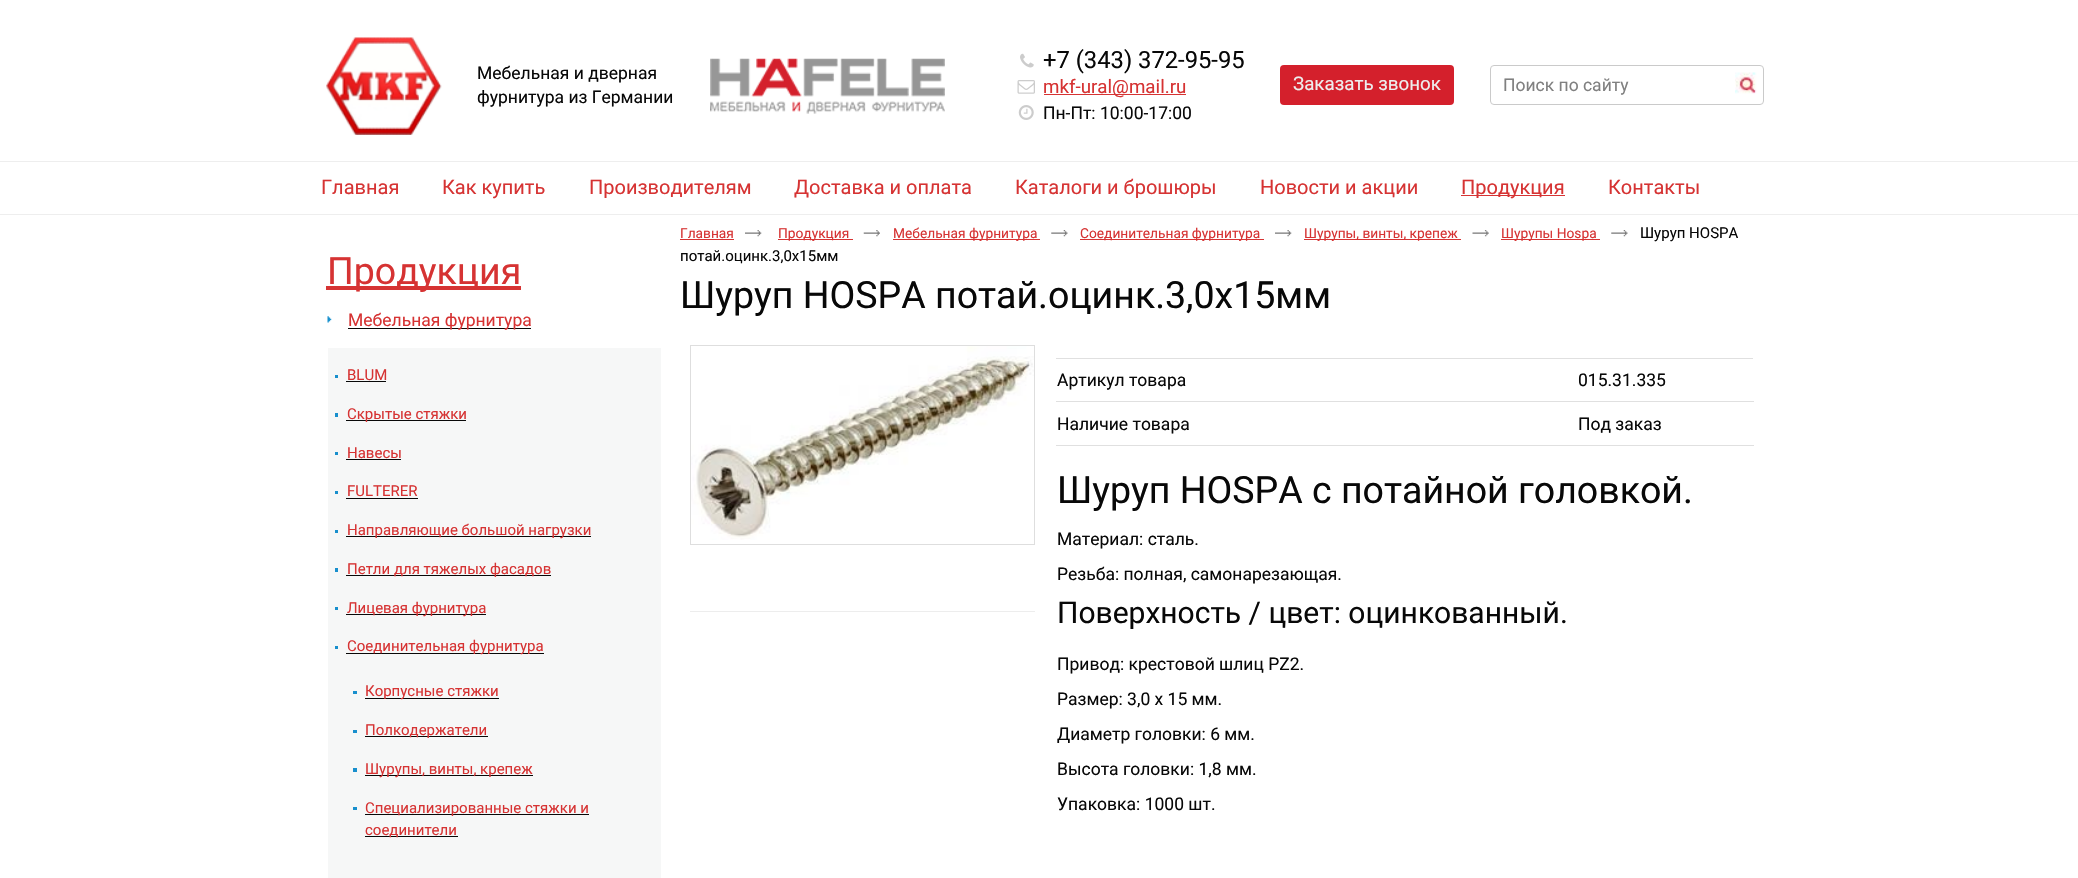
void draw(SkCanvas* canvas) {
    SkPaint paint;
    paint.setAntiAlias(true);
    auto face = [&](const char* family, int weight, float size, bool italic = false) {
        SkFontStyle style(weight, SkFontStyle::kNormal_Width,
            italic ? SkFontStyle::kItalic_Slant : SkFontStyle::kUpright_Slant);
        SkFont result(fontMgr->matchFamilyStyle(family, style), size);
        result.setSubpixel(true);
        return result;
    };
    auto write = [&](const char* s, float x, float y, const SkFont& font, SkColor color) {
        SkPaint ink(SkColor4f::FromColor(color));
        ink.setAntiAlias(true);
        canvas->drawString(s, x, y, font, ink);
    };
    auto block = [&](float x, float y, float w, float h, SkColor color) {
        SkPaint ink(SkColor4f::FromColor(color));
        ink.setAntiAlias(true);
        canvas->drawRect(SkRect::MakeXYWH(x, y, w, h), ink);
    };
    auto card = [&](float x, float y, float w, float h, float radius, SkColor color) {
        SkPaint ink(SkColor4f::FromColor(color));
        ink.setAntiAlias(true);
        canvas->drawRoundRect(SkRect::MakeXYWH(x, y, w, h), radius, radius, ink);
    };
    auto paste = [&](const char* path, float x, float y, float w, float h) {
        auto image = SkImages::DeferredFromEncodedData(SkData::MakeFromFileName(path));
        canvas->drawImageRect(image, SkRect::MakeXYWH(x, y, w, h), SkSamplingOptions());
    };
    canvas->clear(SK_ColorWHITE);
    block(0, 214, 2078, 1, SkColorSetRGB(238, 238, 238));
    paste("pic1.png", 326, 37, 116, 98);
    auto kFont1 = face("Roboto", 400, 17.5f);
    write("Мебельная и дверная", 477, 79, kFont1, SkColorSetRGB(8, 8, 8));
    write("фурнитура из Германии", 477, 103, kFont1, SkColorSetRGB(8, 8, 8));
    paste("pic2.png", 710, 58, 235, 56);
    paste("pic3.png", 1020, 53, 14, 15);
    auto kFont2 = face("Roboto", 400, 23.75f);
    write("+7 (343) 372-95-95", 1043, 68, kFont2, SkColorSetRGB(8, 8, 8));
    paste("pic4.png", 1017, 80, 18, 14);
    block(1044, 94, 142, 1, SkColorSetRGB(214, 51, 51));
    auto kFont3 = face("Roboto", 400, 18.75f);
    write("mkf-ural@mail.ru", 1043, 93, kFont3, SkColorSetRGB(214, 51, 51));
    card(1280, 65, 174, 40, 4, SkColorSetRGB(212, 32, 44));
    write("Заказать звонок", 1293, 90, kFont3, SkColorSetRGB(238, 238, 238));
    paste("pic5.png", 1018, 105, 16, 15);
    write("Пн-Пт: 10:00-17:00", 1043, 119, kFont1, SkColorSetRGB(8, 8, 8));
    paint.setStyle(SkPaint::kStroke_Style);
    paint.setStrokeWidth(1);
    paint.setColor(SkColorSetRGB(202, 202, 202));
    canvas->drawRoundRect(SkRect::MakeXYWH(1490.5f, 65.5f, 273, 39), 3.5f, 3.5f, paint);
    write("Поиск по сайту", 1503, 91, kFont1, SkColorSetRGB(128, 128, 128));
    paste("pic6.png", 1735, 72, 22, 22);
    auto kFont4 = face("Roboto", 400, 20);
    write("Главная", 321, 194, kFont4, SkColorSetRGB(214, 51, 51));
    write("Как купить", 442, 194, kFont4, SkColorSetRGB(214, 51, 51));
    write("Производителям", 589, 194, kFont4, SkColorSetRGB(214, 51, 51));
    write("Доставка и оплата", 794, 194, kFont4, SkColorSetRGB(214, 51, 51));
    write("Каталоги и брошюры", 1015, 194, kFont4, SkColorSetRGB(214, 51, 51));
    write("Новости и акции", 1260, 194, kFont4, SkColorSetRGB(214, 51, 51));
    block(1461, 195, 104, 1, SkColorSetRGB(214, 51, 51));
    write("Продукция", 1461, 194, kFont4, SkColorSetRGB(214, 51, 51));
    write("Контакты", 1608, 194, kFont4, SkColorSetRGB(214, 51, 51));
    block(0, 161, 2078, 1, SkColorSetRGB(238, 238, 238));
    block(326, 286, 195, 4, SkColorSetRGB(214, 51, 51));
    auto kFont5 = face("Roboto", 400, 37.5f);
    write("Продукция", 327, 284, kFont5, SkColorSetRGB(214, 51, 51));
    paste("pic7.png", 327, 316, 5, 7);
    block(348, 328, 183, 1, SkColorSetRGB(8, 8, 8));
    write("Мебельная фурнитура", 348, 326, kFont1, SkColorSetRGB(214, 51, 51));
    block(328, 348, 333, 530, SkColorSetRGB(246, 247, 247));
    block(335, 375, 3, 3, SkColorSetRGB(24, 143, 205));
    auto kFont6 = face("Roboto", 400, 15);
    write("BLUM", 347, 380, kFont6, SkColorSetRGB(214, 51, 51));
    block(346, 381, 40, 1, SkColorSetRGB(8, 8, 8));
    block(335, 413, 3, 4, SkColorSetRGB(24, 143, 205));
    block(346, 420, 120, 1, SkColorSetRGB(8, 8, 8));
    write("Скрытые стяжки", 347, 419, kFont6, SkColorSetRGB(214, 51, 51));
    block(335, 452, 3, 3, SkColorSetRGB(24, 143, 205));
    write("Навесы", 347, 458, kFont6, SkColorSetRGB(214, 51, 51));
    block(346, 459, 55, 1, SkColorSetRGB(8, 8, 8));
    block(335, 491, 3, 3, SkColorSetRGB(24, 143, 205));
    write("FULTERER", 347, 496, kFont6, SkColorSetRGB(214, 51, 51));
    block(346, 498, 72, 1, SkColorSetRGB(8, 8, 8));
    block(335, 530, 3, 3, SkColorSetRGB(24, 143, 205));
    block(346, 536, 245, 1, SkColorSetRGB(8, 8, 8));
    write("Направляющие большой нагрузки", 347, 535, kFont6, SkColorSetRGB(214, 51, 51));
    block(335, 568, 3, 4, SkColorSetRGB(24, 143, 205));
    block(346, 575, 205, 1, SkColorSetRGB(8, 8, 8));
    write("Петли для тяжелых фасадов", 347, 574, kFont6, SkColorSetRGB(214, 51, 51));
    block(335, 607, 3, 3, SkColorSetRGB(24, 143, 205));
    block(346, 614, 140, 1, SkColorSetRGB(8, 8, 8));
    write("Лицевая фурнитура", 347, 613, kFont6, SkColorSetRGB(214, 51, 51));
    block(335, 646, 3, 3, SkColorSetRGB(24, 143, 205));
    block(346, 653, 198, 1, SkColorSetRGB(8, 8, 8));
    write("Соединительная фурнитура", 347, 651, kFont6, SkColorSetRGB(214, 51, 51));
    block(353, 691, 4, 3, SkColorSetRGB(24, 143, 205));
    block(365, 698, 134, 1, SkColorSetRGB(8, 8, 8));
    write("Корпусные стяжки", 365, 696, kFont6, SkColorSetRGB(214, 51, 51));
    block(353, 730, 4, 3, SkColorSetRGB(24, 143, 205));
    block(365, 736, 123, 1, SkColorSetRGB(8, 8, 8));
    write("Полкодержатели", 365, 735, kFont6, SkColorSetRGB(214, 51, 51));
    block(353, 768, 4, 4, SkColorSetRGB(24, 143, 205));
    block(365, 775, 168, 1, SkColorSetRGB(8, 8, 8));
    write("Шурупы, винты, крепеж", 365, 774, kFont6, SkColorSetRGB(214, 51, 51));
    block(353, 807, 4, 3, SkColorSetRGB(24, 143, 205));
    block(365, 814, 224, 1, SkColorSetRGB(8, 8, 8));
    write("Специализированные стяжки и", 365, 813, kFont6, SkColorSetRGB(214, 51, 51));
    block(365, 836, 93, 1, SkColorSetRGB(8, 8, 8));
    write("соединители", 365, 835, kFont6, SkColorSetRGB(214, 51, 51));
    auto kFont7 = face("Roboto", 400, 13.75f);
    write("Главная", 680, 238, kFont7, SkColorSetRGB(214, 51, 51));
    block(680, 239, 54, 1, SkColorSetRGB(214, 51, 51));
    paste("pic8.png", 745, 230, 17, 7);
    block(778, 239, 75, 1, SkColorSetRGB(214, 51, 51));
    write("Продукция", 778, 238, kFont7, SkColorSetRGB(214, 51, 51));
    paste("pic9.png", 863, 230, 17, 7);
    block(893, 239, 147, 1, SkColorSetRGB(214, 51, 51));
    write("Мебельная фурнитура", 893, 238, kFont7, SkColorSetRGB(214, 51, 51));
    paste("pic10.png", 1051, 230, 17, 7);
    block(1080, 239, 184, 1, SkColorSetRGB(214, 51, 51));
    write("Соединительная фурнитура", 1080, 238, kFont7, SkColorSetRGB(214, 51, 51));
    paste("pic11.png", 1275, 230, 17, 7);
    block(1304, 239, 157, 1, SkColorSetRGB(214, 51, 51));
    write("Шурупы, винты, крепеж", 1304, 238, kFont7, SkColorSetRGB(214, 51, 51));
    paste("pic12.png", 1472, 230, 17, 7);
    block(1501, 239, 99, 1, SkColorSetRGB(214, 51, 51));
    write("Шурупы Hospa", 1501, 238, kFont7, SkColorSetRGB(214, 51, 51));
    paste("pic10.png", 1611, 230, 17, 7);
    write("Шуруп HOSPA", 1640, 238, kFont6, SkColorSetRGB(8, 8, 8));
    write("потай.оцинк.3,0x15мм", 680, 261, kFont6, SkColorSetRGB(8, 8, 8));
    write("Шуруп HOSPA потай.оцинк.3,0x15мм", 680, 308, kFont5, SkColorSetRGB(8, 8, 8));
    paint.setColor(SkColorSetRGB(222, 222, 222));
    canvas->drawRect(SkRect::MakeXYWH(690.5f, 345.5f, 344, 199), paint);
    paste("pic13.png", 691, 346, 343, 194);
    block(690, 611, 345, 1, SkColorSetRGB(237, 237, 237));
    block(1056, 358, 697, 1, SkColorSetRGB(224, 224, 224));
    write("Артикул товара", 1057, 386, kFont1, SkColorSetRGB(8, 8, 8));
    block(1056, 401, 698, 1, SkColorSetRGB(224, 224, 224));
    write("015.31.335", 1578, 386, kFont1, SkColorSetRGB(8, 8, 8));
    write("Наличие товара", 1057, 430, kFont1, SkColorSetRGB(8, 8, 8));
    block(1056, 445, 698, 1, SkColorSetRGB(224, 224, 224));
    write("Под заказ", 1578, 430, kFont1, SkColorSetRGB(8, 8, 8));
    write("Шуруп HOSPA с потайной головкой.", 1057, 503, kFont5, SkColorSetRGB(8, 8, 8));
    write("Материал: сталь.", 1057, 545, kFont1, SkColorSetRGB(8, 8, 8));
    write("Резьба: полная, самонарезающая.", 1057, 580, kFont1, SkColorSetRGB(8, 8, 8));
    auto kFont8 = face("Roboto", 400, 30);
    write("Поверхность / цвет: оцинкованный.", 1057, 623, kFont8, SkColorSetRGB(8, 8, 8));
    write("Привод: крестовой шлиц PZ2.", 1057, 670, kFont1, SkColorSetRGB(8, 8, 8));
    write("Размер: 3,0 x 15 мм.", 1057, 705, kFont1, SkColorSetRGB(8, 8, 8));
    write("Диаметр головки: 6 мм.", 1057, 740, kFont1, SkColorSetRGB(8, 8, 8));
    write("Высота головки: 1,8 мм.", 1057, 775, kFont1, SkColorSetRGB(8, 8, 8));
    write("Упаковка: 1000 шт.", 1057, 810, kFont1, SkColorSetRGB(8, 8, 8));
}
